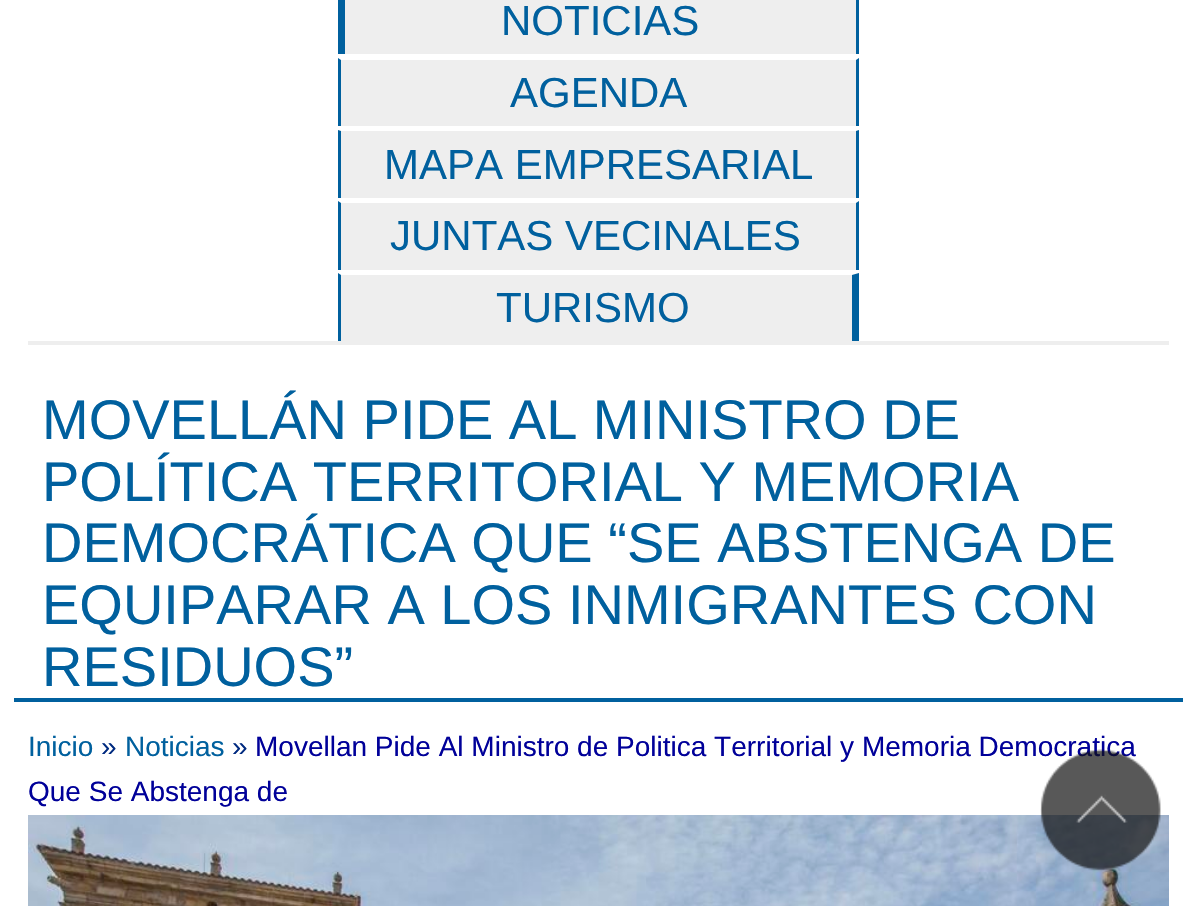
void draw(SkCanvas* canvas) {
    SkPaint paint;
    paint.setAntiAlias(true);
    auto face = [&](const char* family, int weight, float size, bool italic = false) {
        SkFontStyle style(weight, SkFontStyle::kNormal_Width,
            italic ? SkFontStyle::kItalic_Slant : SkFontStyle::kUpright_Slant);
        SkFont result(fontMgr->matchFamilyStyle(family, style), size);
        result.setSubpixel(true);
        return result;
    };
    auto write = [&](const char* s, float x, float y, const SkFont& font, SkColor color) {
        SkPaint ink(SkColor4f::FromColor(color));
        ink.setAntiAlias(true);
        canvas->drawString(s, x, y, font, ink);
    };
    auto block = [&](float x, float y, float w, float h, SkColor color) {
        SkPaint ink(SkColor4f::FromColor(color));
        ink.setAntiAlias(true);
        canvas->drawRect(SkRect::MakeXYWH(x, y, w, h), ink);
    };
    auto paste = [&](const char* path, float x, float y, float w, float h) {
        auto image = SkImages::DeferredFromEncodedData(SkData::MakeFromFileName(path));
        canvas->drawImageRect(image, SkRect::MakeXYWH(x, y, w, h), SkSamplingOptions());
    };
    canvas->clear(SK_ColorWHITE);
    block(28, 341, 1141, 4, SkColorSetRGB(238, 238, 238));
    block(345, 0, 511, 54, SkColorSetRGB(238, 238, 238));
    paint.setColor(SkColorSetRGB(0, 96, 158));
    canvas->drawPath(SkPathBuilder().moveTo(859, -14).lineTo(859, 54).lineTo(856, 54).lineTo(856, -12).close().detach(), paint);
    canvas->drawPath(SkPathBuilder().moveTo(338, 54).lineTo(338, -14).lineTo(345, -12).lineTo(345, 54).close().detach(), paint);
    auto kFont1 = face("Liberation Sans", 400, 42);
    write("NOTICIAS", 501, 35, kFont1, SkColorSetRGB(0, 96, 158));
    block(338, 58, 521, 68, SkColorSetRGB(238, 238, 238));
    paint.setColor(SK_ColorWHITE);
    canvas->drawPath(SkPathBuilder().moveTo(338, 58).lineTo(859, 58).lineTo(856, 60).lineTo(341, 60).close().detach(), paint);
    paint.setColor(SkColorSetRGB(0, 96, 158));
    canvas->drawPath(SkPathBuilder().moveTo(859, 58).lineTo(859, 126).lineTo(856, 126).lineTo(856, 60).close().detach(), paint);
    canvas->drawPath(SkPathBuilder().moveTo(338, 126).lineTo(338, 58).lineTo(341, 60).lineTo(341, 126).close().detach(), paint);
    write("AGENDA", 510, 107, kFont1, SkColorSetRGB(0, 96, 158));
    block(338, 130, 521, 68, SkColorSetRGB(238, 238, 238));
    paint.setColor(SK_ColorWHITE);
    canvas->drawPath(SkPathBuilder().moveTo(338, 130).lineTo(859, 130).lineTo(856, 131).lineTo(341, 131).close().detach(), paint);
    paint.setColor(SkColorSetRGB(0, 96, 158));
    canvas->drawPath(SkPathBuilder().moveTo(859, 130).lineTo(859, 198).lineTo(856, 198).lineTo(856, 131).close().detach(), paint);
    canvas->drawPath(SkPathBuilder().moveTo(338, 198).lineTo(338, 130).lineTo(341, 131).lineTo(341, 198).close().detach(), paint);
    write("MAPA EMPRESARIAL", 384, 179, kFont1, SkColorSetRGB(0, 96, 158));
    block(338, 201, 521, 69, SkColorSetRGB(238, 238, 238));
    paint.setColor(SK_ColorWHITE);
    canvas->drawPath(SkPathBuilder().moveTo(338, 201).lineTo(859, 201).lineTo(856, 203).lineTo(341, 203).close().detach(), paint);
    paint.setColor(SkColorSetRGB(0, 96, 158));
    canvas->drawPath(SkPathBuilder().moveTo(859, 201).lineTo(859, 270).lineTo(856, 270).lineTo(856, 203).close().detach(), paint);
    canvas->drawPath(SkPathBuilder().moveTo(338, 270).lineTo(338, 201).lineTo(341, 203).lineTo(341, 270).close().detach(), paint);
    write("JUNTAS VECINALES", 390, 250, kFont1, SkColorSetRGB(0, 96, 158));
    block(338, 273, 521, 68, SkColorSetRGB(238, 238, 238));
    paint.setColor(SK_ColorWHITE);
    canvas->drawPath(SkPathBuilder().moveTo(338, 273).lineTo(859, 273).lineTo(852, 275).lineTo(341, 275).close().detach(), paint);
    paint.setColor(SkColorSetRGB(0, 96, 158));
    canvas->drawPath(SkPathBuilder().moveTo(859, 273).lineTo(859, 341).lineTo(852, 341).lineTo(852, 275).close().detach(), paint);
    canvas->drawPath(SkPathBuilder().moveTo(338, 341).lineTo(338, 273).lineTo(341, 275).lineTo(341, 341).close().detach(), paint);
    write("TURISMO", 496, 322, kFont1, SkColorSetRGB(0, 96, 158));
    block(14, 698, 1169, 4, SkColorSetRGB(0, 96, 158));
    auto kFont2 = face("Liberation Sans", 400, 56);
    write("MOVELLÁN PIDE AL MINISTRO DE", 42, 439, kFont2, SkColorSetRGB(0, 96, 158));
    write("POLÍTICA TERRITORIAL Y MEMORIA", 42, 501, kFont2, SkColorSetRGB(0, 96, 158));
    write("DEMOCRÁTICA QUE “SE ABSTENGA DE", 42, 562, kFont2, SkColorSetRGB(0, 96, 158));
    write("EQUIPARAR A LOS INMIGRANTES CON", 42, 624, kFont2, SkColorSetRGB(0, 96, 158));
    write("RESIDUOS”", 42, 686, kFont2, SkColorSetRGB(0, 96, 158));
    auto kFont3 = face("Liberation Sans", 400, 28);
    write("Inicio", 28, 756, kFont3, SkColorSetRGB(0, 96, 158));
    write("»", 101, 756, kFont3, SkColorSetRGB(0, 42, 128));
    write("Noticias", 125, 756, kFont3, SkColorSetRGB(0, 96, 158));
    write("»", 232, 756, kFont3, SkColorSetRGB(0, 42, 128));
    write("Movellan Pide Al Ministro de Politica Territorial y Memoria Democratica", 255, 756, kFont3, SkColorSetRGB(0, 0, 153));
    write("Que Se Abstenga de", 28, 801, kFont3, SkColorSetRGB(0, 0, 153));
    paste("pic1.png", 28, 815, 1141, 91);
    paste("pic2.png", 1040, 749, 121, 122);
}
